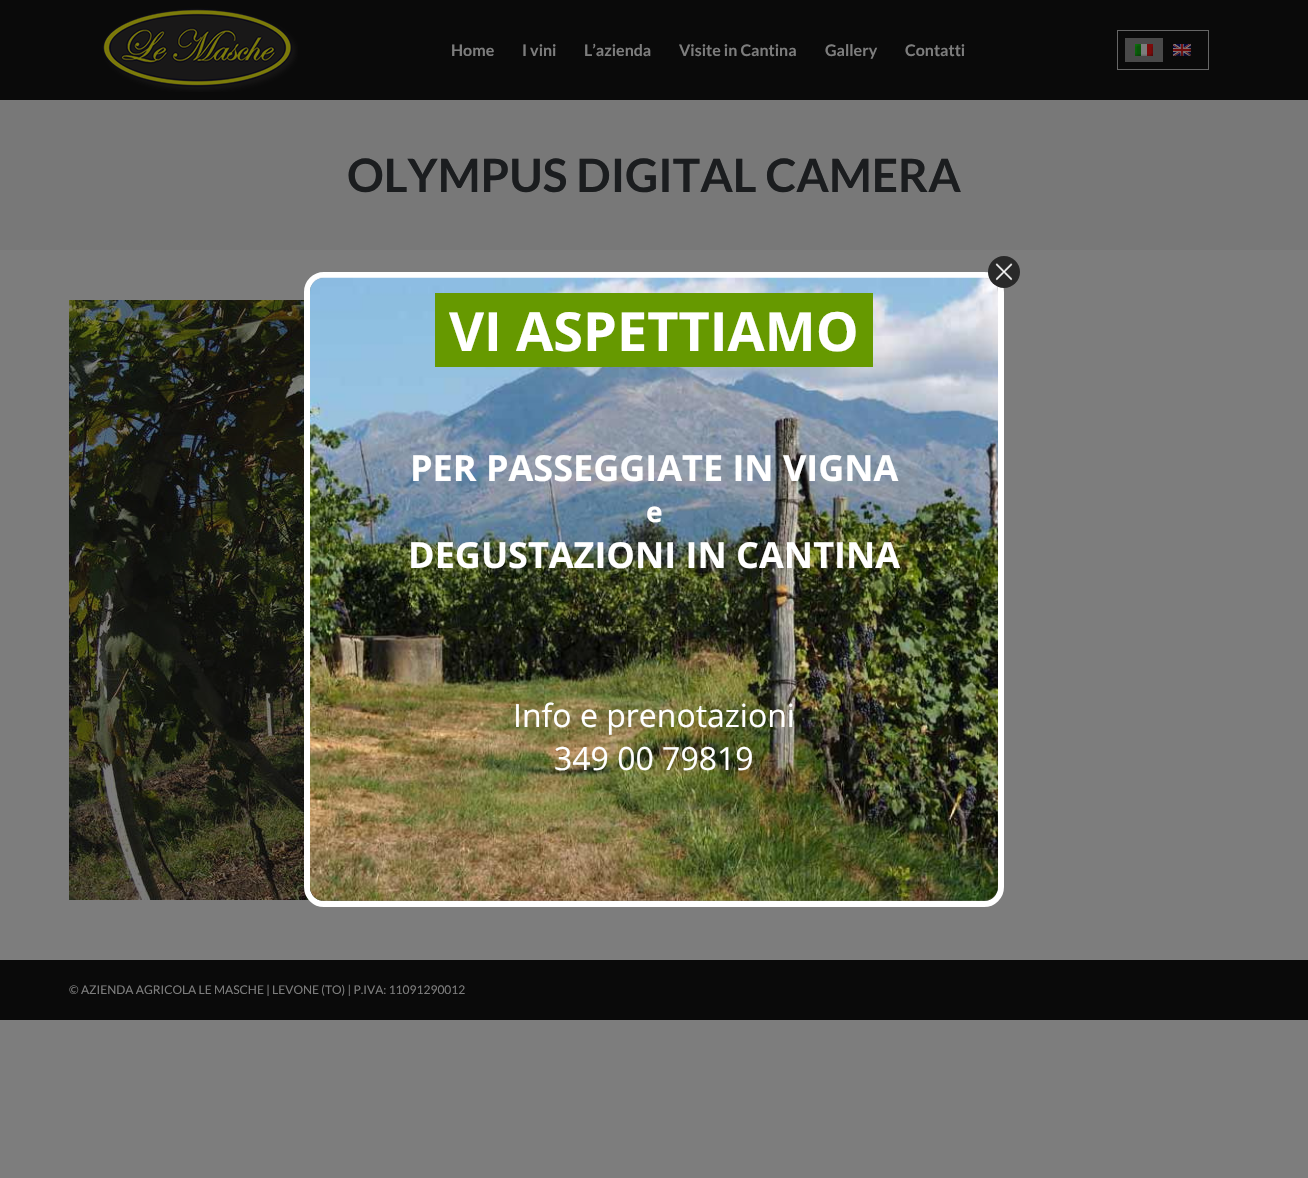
void draw(SkCanvas* canvas) {
    SkPaint paint;
    paint.setAntiAlias(true);
    auto face = [&](const char* family, int weight, float size, bool italic = false) {
        SkFontStyle style(weight, SkFontStyle::kNormal_Width,
            italic ? SkFontStyle::kItalic_Slant : SkFontStyle::kUpright_Slant);
        SkFont result(fontMgr->matchFamilyStyle(family, style), size);
        result.setSubpixel(true);
        return result;
    };
    auto write = [&](const char* s, float x, float y, const SkFont& font, SkColor color) {
        SkPaint ink(SkColor4f::FromColor(color));
        ink.setAntiAlias(true);
        canvas->drawString(s, x, y, font, ink);
    };
    auto block = [&](float x, float y, float w, float h, SkColor color) {
        SkPaint ink(SkColor4f::FromColor(color));
        ink.setAntiAlias(true);
        canvas->drawRect(SkRect::MakeXYWH(x, y, w, h), ink);
    };
    auto paste = [&](const char* path, float x, float y, float w, float h) {
        auto image = SkImages::DeferredFromEncodedData(SkData::MakeFromFileName(path));
        canvas->drawImageRect(image, SkRect::MakeXYWH(x, y, w, h), SkSamplingOptions());
    };
    canvas->clear(SkColorSetRGB(125, 125, 125));
    block(0, 0, 1308, 100, SkColorSetRGB(10, 10, 10));
    paste("pic1.png", 102, 8, 196, 84);
    auto kFont1 = face("Lato", 700, 16);
    write("Home", 451, 56, kFont1, SkColorSetRGB(125, 125, 125));
    write("I vini", 522, 56, kFont1, SkColorSetRGB(125, 125, 125));
    write("L’azienda", 584, 56, kFont1, SkColorSetRGB(125, 125, 125));
    write("Visite in Cantina", 679, 56, kFont1, SkColorSetRGB(125, 125, 125));
    write("Gallery", 825, 56, kFont1, SkColorSetRGB(125, 125, 125));
    write("Contatti", 905, 56, kFont1, SkColorSetRGB(125, 125, 125));
    paint.setStyle(SkPaint::kStroke_Style);
    paint.setStrokeWidth(1);
    paint.setColor(SkColorSetRGB(102, 102, 102));
    canvas->drawRect(SkRect::MakeXYWH(1117.5f, 30.5f, 91, 39), paint);
    block(1125, 38, 38, 24, SkColorSetRGB(73, 73, 73));
    paste("pic2.png", 1135, 44, 18, 12);
    paste("pic3.png", 1173, 44, 18, 12);
    block(0, 100, 1308, 150, SkColorSetRGB(120, 120, 120));
    auto kFont2 = face("Lato", 700, 46);
    write("OLYMPUS DIGITAL CAMERA", 347, 192, kFont2, SkColorSetRGB(27, 29, 31));
    paste("pic4.png", 69, 300, 255, 600);
    block(0, 960, 1308, 60, SkColorSetRGB(10, 10, 10));
    auto kFont3 = face("Lato", 400, 12);
    write("© AZIENDA AGRICOLA LE MASCHE | LEVONE (TO) | P.IVA: 11091290012", 69, 994, kFont3, SkColorSetRGB(125, 125, 125));
    paint.setStrokeWidth(6);
    paint.setColor(SK_ColorWHITE);
    canvas->drawRoundRect(SkRect::MakeXYWH(307, 275, 694, 629), 17, 17, paint);
    paste("pic6.png", 310, 277, 688, 624);
    paint.setStyle(SkPaint::kFill_Style);
    paint.setColor(SkColorSetRGB(41, 41, 41));
    canvas->drawCircle(1004, 272, 16, paint);
    paste("pic5.png", 995, 263, 18, 18);
    block(435, 293, 438, 74, SkColorSetRGB(102, 153, 0));
    auto kFont4 = face("Open Sans", 700, 54);
    write("VI ASPETTIAMO", 449, 351, kFont4, SK_ColorWHITE);
    auto kFont5 = face("Open Sans", 700, 36);
    write("PER PASSEGGIATE IN VIGNA", 410, 481, kFont5, SK_ColorWHITE);
    auto kFont6 = face("Open Sans", 700, 28);
    write("e", 646, 522, kFont6, SK_ColorWHITE);
    write("DEGUSTAZIONI IN CANTINA", 408, 568, kFont5, SK_ColorWHITE);
    auto kFont7 = face("Open Sans", 400, 32);
    write("Info e prenotazioni", 513, 727, kFont7, SK_ColorWHITE);
    write("349 00 79819", 554, 770, kFont7, SK_ColorWHITE);
}
